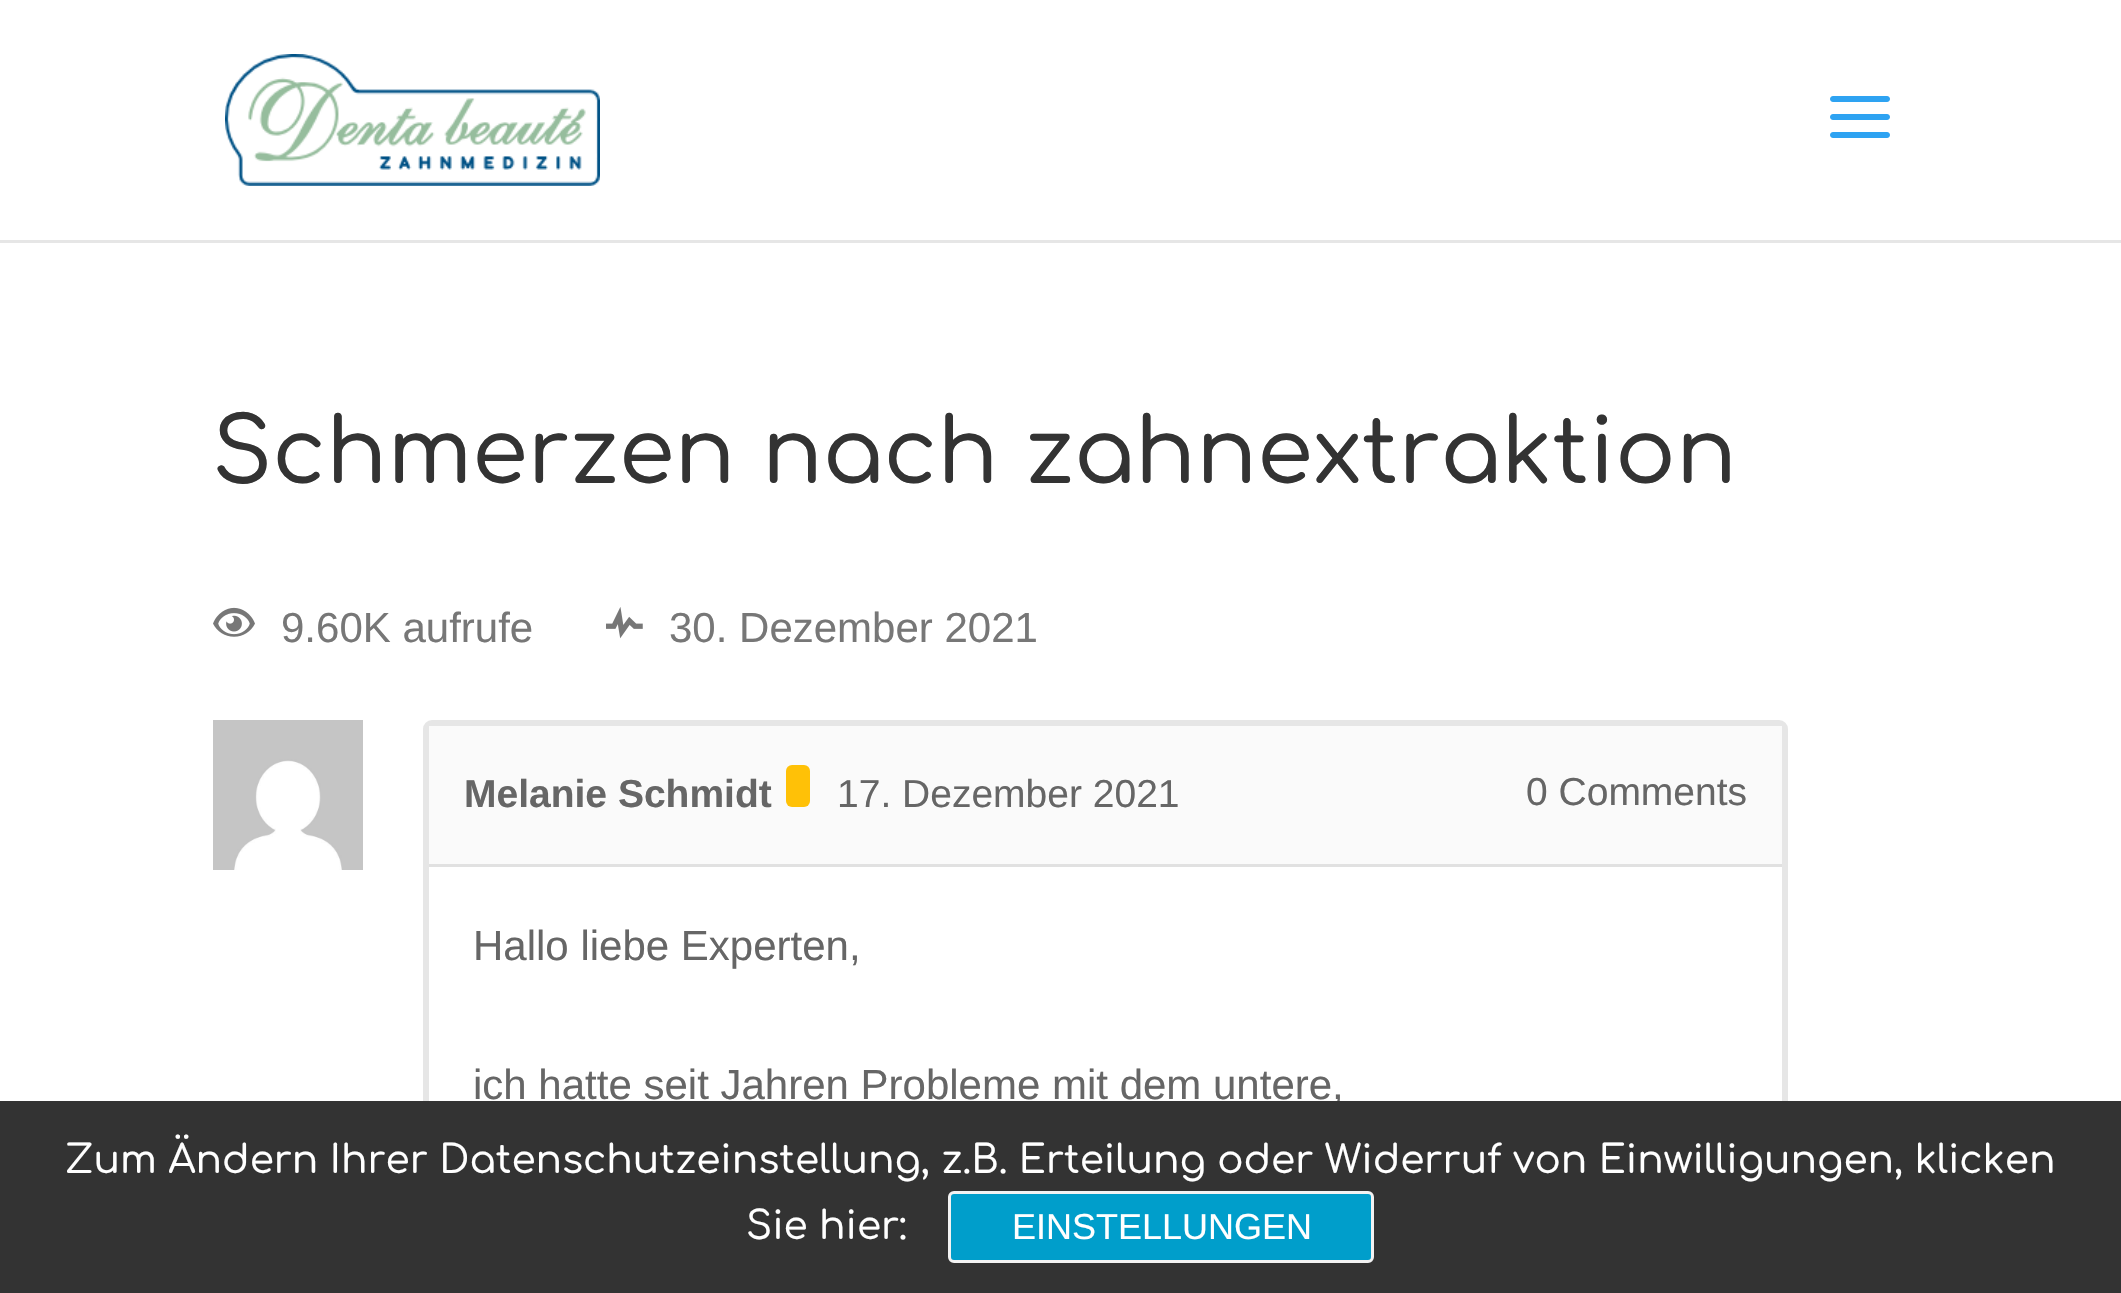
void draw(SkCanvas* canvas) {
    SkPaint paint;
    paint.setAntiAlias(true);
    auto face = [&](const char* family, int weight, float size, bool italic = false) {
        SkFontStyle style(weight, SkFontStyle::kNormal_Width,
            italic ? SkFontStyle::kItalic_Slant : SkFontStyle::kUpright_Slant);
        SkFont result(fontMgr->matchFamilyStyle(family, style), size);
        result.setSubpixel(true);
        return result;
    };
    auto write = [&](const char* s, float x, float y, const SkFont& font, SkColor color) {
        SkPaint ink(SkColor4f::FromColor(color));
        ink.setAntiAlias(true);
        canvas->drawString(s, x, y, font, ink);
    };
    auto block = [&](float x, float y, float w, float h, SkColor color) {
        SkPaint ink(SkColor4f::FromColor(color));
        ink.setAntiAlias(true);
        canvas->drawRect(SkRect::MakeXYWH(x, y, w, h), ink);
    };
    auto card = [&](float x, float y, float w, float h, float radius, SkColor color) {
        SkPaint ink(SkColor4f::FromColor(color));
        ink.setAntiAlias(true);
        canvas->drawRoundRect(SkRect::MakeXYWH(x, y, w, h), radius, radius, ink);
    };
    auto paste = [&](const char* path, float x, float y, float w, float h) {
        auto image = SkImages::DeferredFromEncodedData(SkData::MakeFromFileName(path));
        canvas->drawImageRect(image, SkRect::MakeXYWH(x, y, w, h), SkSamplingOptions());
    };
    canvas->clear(SK_ColorWHITE);
    block(0, 240, 2121, 3, SkColorSetRGB(230, 230, 230));
    paste("pic1.png", 225, 54, 375, 132);
    paste("pic2.png", 1830, 96, 60, 42);
    auto kFont1 = face("Comfortaa", 500, 90);
    write("Schmerzen nach zahnextraktion", 212, 483, kFont1, SkColorSetRGB(51, 51, 51));
    paste("pic3.png", 213, 607, 42, 30);
    auto kFont2 = face("Liberation Sans", 400, 42);
    write("9.60K aufrufe", 281, 642, kFont2, SkColorSetRGB(119, 119, 119));
    paste("pic4.png", 606, 607, 37, 32);
    write("30. Dezember 2021", 669, 642, kFont2, SkColorSetRGB(119, 119, 119));
    paste("pic5.png", 213, 720, 150, 150);
    paint.setStyle(SkPaint::kStroke_Style);
    paint.setStrokeWidth(6);
    paint.setColor(SkColorSetRGB(230, 230, 230));
    canvas->drawRoundRect(SkRect::MakeXYWH(426, 723, 1359, 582), 6, 6, paint);
    block(429, 726, 1353, 138, SkColorSetRGB(250, 250, 250));
    block(429, 864, 1353, 3, SkColorSetRGB(225, 225, 225));
    auto kFont3 = face("Liberation Sans", 700, 39);
    write("Melanie Schmidt", 464, 807, kFont3, SkColorSetRGB(102, 102, 102));
    card(786, 765, 24, 42, 6, SkColorSetRGB(255, 193, 7));
    auto kFont4 = face("Liberation Sans", 400, 39);
    write("17. Dezember 2021", 837, 807, kFont4, SkColorSetRGB(102, 102, 102));
    write("0 Comments", 1526, 805, kFont4, SkColorSetRGB(102, 102, 102));
    write("Hallo liebe Experten,", 473, 960, kFont2, SkColorSetRGB(102, 102, 102));
    write("ich hatte seit Jahren Probleme mit dem untere,", 473, 1099, kFont2, SkColorSetRGB(102, 102, 102));
    block(0, 1101, 2121, 192, SkColorSetRGB(51, 51, 51));
    auto kFont5 = face("Comfortaa", 500, 39);
    write("Zum Ändern Ihrer Datenschutzeinstellung, z.B. Erteilung oder Widerruf von Einwilligungen, klicken", 65, 1173, kFont5, SK_ColorWHITE);
    write("Sie hier:", 746, 1239, kFont5, SK_ColorWHITE);
    paint.setStyle(SkPaint::kFill_Style);
    paint.setColor(SkColorSetRGB(0, 158, 203));
    canvas->drawRoundRect(SkRect::MakeXYWH(949.5f, 1192.5f, 423, 69), 4.5f, 4.5f, paint);
    paint.setStyle(SkPaint::kStroke_Style);
    paint.setStrokeWidth(3);
    paint.setColor(SkColorSetRGB(243, 243, 243));
    canvas->drawRoundRect(SkRect::MakeXYWH(949.5f, 1192.5f, 423, 69), 4.5f, 4.5f, paint);
    auto kFont6 = face("Liberation Sans", 400, 36);
    write("EINSTELLUNGEN", 1012, 1239, kFont6, SK_ColorWHITE);
}
